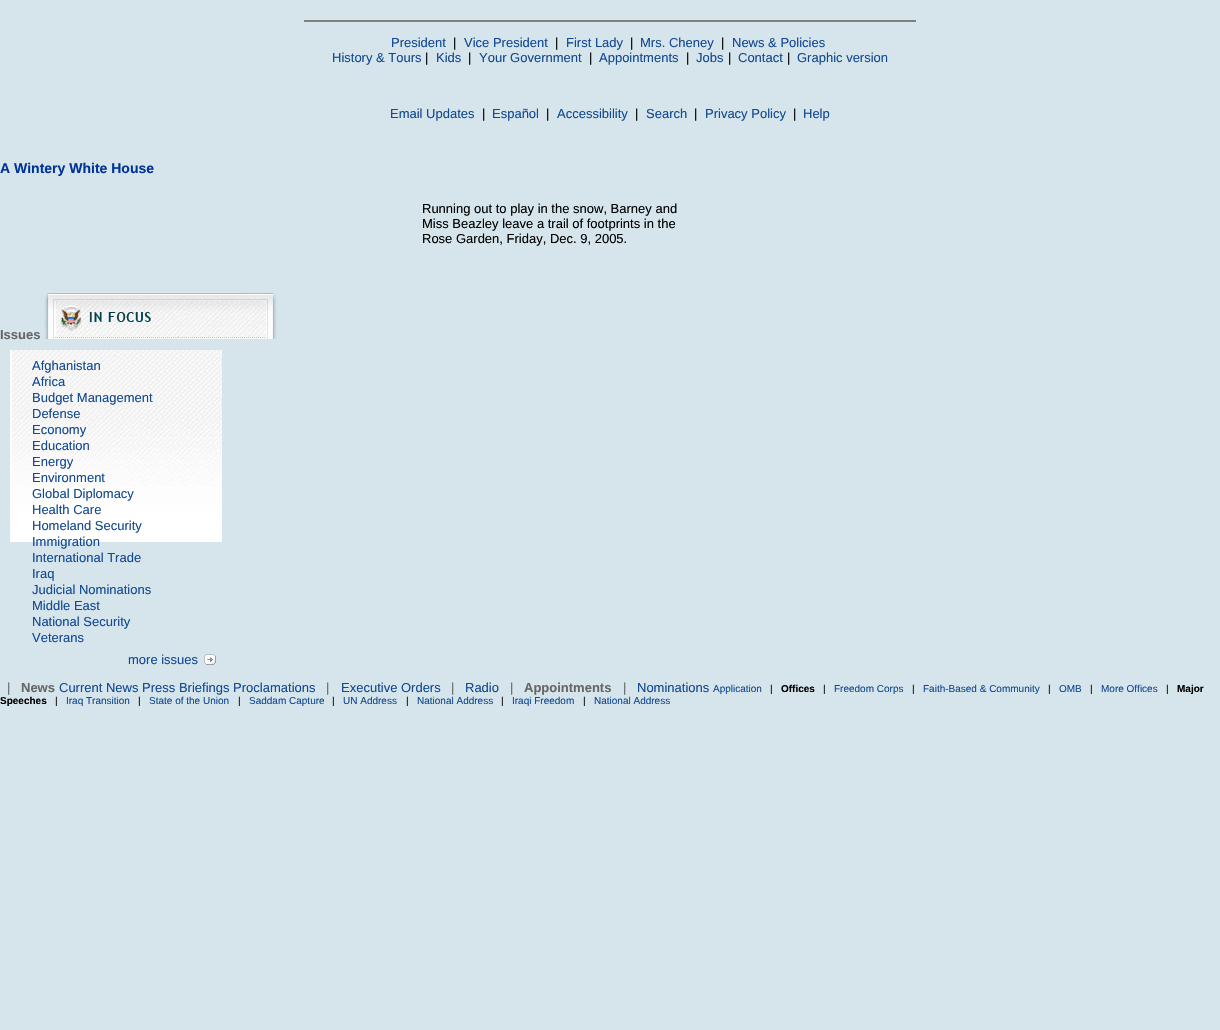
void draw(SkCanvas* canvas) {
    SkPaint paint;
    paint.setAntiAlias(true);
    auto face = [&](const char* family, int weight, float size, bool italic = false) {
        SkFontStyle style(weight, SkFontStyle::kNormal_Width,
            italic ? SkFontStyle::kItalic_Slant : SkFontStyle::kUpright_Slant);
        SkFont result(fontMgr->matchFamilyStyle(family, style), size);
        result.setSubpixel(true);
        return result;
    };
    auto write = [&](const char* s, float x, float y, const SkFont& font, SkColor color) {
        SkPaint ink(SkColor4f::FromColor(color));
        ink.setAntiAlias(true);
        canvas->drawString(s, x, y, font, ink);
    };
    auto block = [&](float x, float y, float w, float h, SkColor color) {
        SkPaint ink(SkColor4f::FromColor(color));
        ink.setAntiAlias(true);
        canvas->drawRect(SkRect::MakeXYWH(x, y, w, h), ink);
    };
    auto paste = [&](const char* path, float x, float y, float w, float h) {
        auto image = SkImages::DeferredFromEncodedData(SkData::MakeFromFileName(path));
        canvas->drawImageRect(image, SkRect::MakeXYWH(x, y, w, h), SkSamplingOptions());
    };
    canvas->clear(SkColorSetRGB(213, 229, 235));
    block(304, 20, 612, 2, SkColorSetRGB(128, 128, 128));
    auto kFont1 = face("Liberation Sans", 400, 13);
    write("President", 391, 47, kFont1, SkColorSetRGB(19, 73, 146));
    write("|", 453, 47, kFont1, SK_ColorBLACK);
    write("Vice President", 464, 47, kFont1, SkColorSetRGB(19, 73, 146));
    write("|", 555, 47, kFont1, SK_ColorBLACK);
    write("First Lady", 566, 47, kFont1, SkColorSetRGB(19, 73, 146));
    write("|", 630, 47, kFont1, SK_ColorBLACK);
    write("Mrs. Cheney", 640, 47, kFont1, SkColorSetRGB(19, 73, 146));
    write("|", 721, 47, kFont1, SK_ColorBLACK);
    write("News & Policies", 732, 47, kFont1, SkColorSetRGB(19, 73, 146));
    write("History & Tours", 332, 62, kFont1, SkColorSetRGB(19, 73, 146));
    write("|", 425, 62, kFont1, SK_ColorBLACK);
    write("Kids", 436, 62, kFont1, SkColorSetRGB(19, 73, 146));
    write("|", 468, 62, kFont1, SK_ColorBLACK);
    write("Your Government", 479, 62, kFont1, SkColorSetRGB(19, 73, 146));
    write("|", 589, 62, kFont1, SK_ColorBLACK);
    write("Appointments", 599, 62, kFont1, SkColorSetRGB(19, 73, 146));
    write("|", 686, 62, kFont1, SK_ColorBLACK);
    write("Jobs", 696, 62, kFont1, SkColorSetRGB(19, 73, 146));
    write("|", 728, 62, kFont1, SK_ColorBLACK);
    write("Contact", 738, 62, kFont1, SkColorSetRGB(19, 73, 146));
    write("|", 787, 62, kFont1, SK_ColorBLACK);
    write("Graphic version", 797, 62, kFont1, SkColorSetRGB(19, 73, 146));
    write("Email Updates", 390, 118, kFont1, SkColorSetRGB(19, 73, 146));
    write("|", 482, 118, kFont1, SK_ColorBLACK);
    write("Español", 492, 118, kFont1, SkColorSetRGB(19, 73, 146));
    write("|", 546, 118, kFont1, SK_ColorBLACK);
    write("Accessibility", 557, 118, kFont1, SkColorSetRGB(19, 73, 146));
    write("|", 635, 118, kFont1, SK_ColorBLACK);
    write("Search", 646, 118, kFont1, SkColorSetRGB(19, 73, 146));
    write("|", 694, 118, kFont1, SK_ColorBLACK);
    write("Privacy Policy", 705, 118, kFont1, SkColorSetRGB(19, 73, 146));
    write("|", 793, 118, kFont1, SK_ColorBLACK);
    write("Help", 803, 118, kFont1, SkColorSetRGB(19, 73, 146));
    auto kFont2 = face("Liberation Sans", 700, 14);
    write("A Wintery White House", 0, 173, kFont2, SkColorSetRGB(0, 51, 153));
    write("Running out to play in the snow, Barney and", 422, 213, kFont1, SK_ColorBLACK);
    write("Miss Beazley leave a trail of footprints in the", 422, 228, kFont1, SK_ColorBLACK);
    write("Rose Garden, Friday, Dec. 9, 2005.", 422, 243, kFont1, SK_ColorBLACK);
    auto kFont3 = face("Liberation Sans", 700, 13);
    write("Issues", 0, 339, kFont3, SkColorSetRGB(102, 102, 102));
    paste("pic1.png", 44, 289, 233, 50);
    paste("pic2.png", 10, 350, 212, 192);
    write("Afghanistan", 32, 370, kFont1, SkColorSetRGB(19, 73, 146));
    write("Africa", 32, 386, kFont1, SkColorSetRGB(19, 73, 146));
    write("Budget Management", 32, 402, kFont1, SkColorSetRGB(19, 73, 146));
    write("Defense", 32, 418, kFont1, SkColorSetRGB(19, 73, 146));
    write("Economy", 32, 434, kFont1, SkColorSetRGB(19, 73, 146));
    write("Education", 32, 450, kFont1, SkColorSetRGB(19, 73, 146));
    write("Energy", 32, 466, kFont1, SkColorSetRGB(19, 73, 146));
    write("Environment", 32, 482, kFont1, SkColorSetRGB(19, 73, 146));
    write("Global Diplomacy", 32, 498, kFont1, SkColorSetRGB(19, 73, 146));
    write("Health Care", 32, 514, kFont1, SkColorSetRGB(19, 73, 146));
    write("Homeland Security", 32, 530, kFont1, SkColorSetRGB(19, 73, 146));
    write("Immigration", 32, 546, kFont1, SkColorSetRGB(19, 73, 146));
    write("International Trade", 32, 562, kFont1, SkColorSetRGB(19, 73, 146));
    write("Iraq", 32, 578, kFont1, SkColorSetRGB(19, 73, 146));
    write("Judicial Nominations", 32, 594, kFont1, SkColorSetRGB(19, 73, 146));
    write("Middle East", 32, 610, kFont1, SkColorSetRGB(19, 73, 146));
    write("National Security", 32, 626, kFont1, SkColorSetRGB(19, 73, 146));
    write("Veterans", 32, 642, kFont1, SkColorSetRGB(19, 73, 146));
    write("more issues", 128, 664, kFont1, SkColorSetRGB(19, 73, 146));
    paste("pic3.png", 204, 654, 12, 11);
    write("|", 7, 692, kFont1, SkColorSetRGB(102, 102, 102));
    write("News", 21, 692, kFont3, SkColorSetRGB(102, 102, 102));
    write("Current News Press Briefings Proclamations", 59, 692, kFont1, SkColorSetRGB(19, 73, 146));
    write("|", 326, 692, kFont1, SkColorSetRGB(102, 102, 102));
    write("Executive Orders", 341, 692, kFont1, SkColorSetRGB(19, 73, 146));
    write("|", 451, 692, kFont1, SkColorSetRGB(102, 102, 102));
    write("Radio", 465, 692, kFont1, SkColorSetRGB(19, 73, 146));
    write("|", 510, 692, kFont1, SkColorSetRGB(102, 102, 102));
    write("Appointments", 524, 692, kFont3, SkColorSetRGB(102, 102, 102));
    write("|", 623, 692, kFont1, SkColorSetRGB(102, 102, 102));
    write("Nominations", 637, 692, kFont1, SkColorSetRGB(19, 73, 146));
    auto kFont4 = face("Liberation Sans", 400, 10);
    write("Application", 713, 692, kFont4, SkColorSetRGB(19, 73, 146));
    write("|", 770, 692, kFont4, SK_ColorBLACK);
    auto kFont5 = face("Liberation Sans", 700, 10);
    write("Offices", 781, 692, kFont5, SK_ColorBLACK);
    write("|", 823, 692, kFont4, SK_ColorBLACK);
    write("Freedom Corps", 834, 692, kFont4, SkColorSetRGB(19, 73, 146));
    write("|", 912, 692, kFont4, SK_ColorBLACK);
    write("Faith-Based & Community", 923, 692, kFont4, SkColorSetRGB(19, 73, 146));
    write("|", 1048, 692, kFont4, SK_ColorBLACK);
    write("OMB", 1059, 692, kFont4, SkColorSetRGB(19, 73, 146));
    write("|", 1090, 692, kFont4, SK_ColorBLACK);
    write("More Offices", 1101, 692, kFont4, SkColorSetRGB(19, 73, 146));
    write("|", 1166, 692, kFont4, SK_ColorBLACK);
    write("Major", 1177, 692, kFont5, SK_ColorBLACK);
    write("Speeches", 0, 704, kFont5, SK_ColorBLACK);
    write("|", 55, 704, kFont4, SK_ColorBLACK);
    write("Iraq Transition", 66, 704, kFont4, SkColorSetRGB(19, 73, 146));
    write("|", 138, 704, kFont4, SK_ColorBLACK);
    write("State of the Union", 149, 704, kFont4, SkColorSetRGB(19, 73, 146));
    write("|", 238, 704, kFont4, SK_ColorBLACK);
    write("Saddam Capture", 249, 704, kFont4, SkColorSetRGB(19, 73, 146));
    write("|", 332, 704, kFont4, SK_ColorBLACK);
    write("UN Address", 343, 704, kFont4, SkColorSetRGB(19, 73, 146));
    write("|", 406, 704, kFont4, SK_ColorBLACK);
    write("National Address", 417, 704, kFont4, SkColorSetRGB(19, 73, 146));
    write("|", 501, 704, kFont4, SK_ColorBLACK);
    write("Iraqi Freedom", 512, 704, kFont4, SkColorSetRGB(19, 73, 146));
    write("|", 583, 704, kFont4, SK_ColorBLACK);
    write("National Address", 594, 704, kFont4, SkColorSetRGB(19, 73, 146));
}
